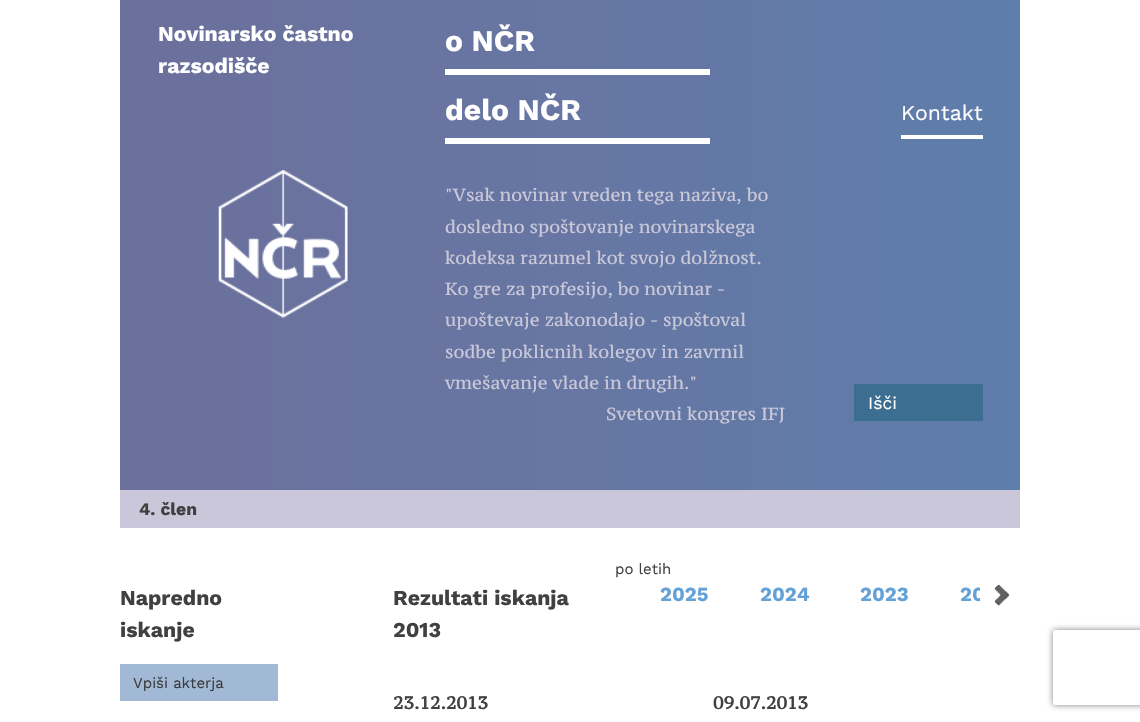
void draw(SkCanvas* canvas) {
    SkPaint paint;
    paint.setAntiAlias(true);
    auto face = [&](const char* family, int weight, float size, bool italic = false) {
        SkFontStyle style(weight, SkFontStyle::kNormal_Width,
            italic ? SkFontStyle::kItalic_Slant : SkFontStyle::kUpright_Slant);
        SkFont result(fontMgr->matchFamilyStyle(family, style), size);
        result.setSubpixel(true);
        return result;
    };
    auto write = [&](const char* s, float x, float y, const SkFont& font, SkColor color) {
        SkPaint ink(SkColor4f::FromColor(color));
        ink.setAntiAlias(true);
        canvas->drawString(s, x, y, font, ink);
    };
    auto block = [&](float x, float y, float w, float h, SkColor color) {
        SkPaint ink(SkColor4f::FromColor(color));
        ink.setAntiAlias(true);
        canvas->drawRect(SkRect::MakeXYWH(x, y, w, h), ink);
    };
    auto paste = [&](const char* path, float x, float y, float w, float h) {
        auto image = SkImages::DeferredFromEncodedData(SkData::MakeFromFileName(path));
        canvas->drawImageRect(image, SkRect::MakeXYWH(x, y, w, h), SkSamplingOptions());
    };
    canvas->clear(SK_ColorWHITE);
    paste("pic1.png", 120, 0, 900, 490);
    auto kFont1 = face("Work Sans", 700, 21.25f);
    write("Novinarsko častno", 158, 41, kFont1, SK_ColorWHITE);
    write("razsodišče", 158, 73, kFont1, SK_ColorWHITE);
    paste("pic2.png", 218, 170, 130, 148);
    auto kFont2 = face("Work Sans", 700, 30);
    write("o NČR", 445, 51, kFont2, SK_ColorWHITE);
    block(445, 69, 265, 6, SK_ColorWHITE);
    write("delo NČR", 445, 120, kFont2, SK_ColorWHITE);
    block(445, 138, 265, 6, SK_ColorWHITE);
    auto kFont3 = face("Work Sans", 400, 21.25f);
    write("Kontakt", 901, 120, kFont3, SK_ColorWHITE);
    block(901, 135, 82, 4, SK_ColorWHITE);
    auto kFont4 = face("PT Serif Caption", 400, 17.5f);
    write("\"Vsak novinar vreden tega naziva, bo", 445, 201, kFont4, SkColorSetRGB(201, 200, 217));
    write("dosledno spoštovanje novinarskega", 445, 233, kFont4, SkColorSetRGB(201, 200, 217));
    write("kodeksa razumel kot svojo dolžnost.", 445, 264, kFont4, SkColorSetRGB(201, 200, 217));
    write("Ko gre za profesijo, bo novinar -", 445, 295, kFont4, SkColorSetRGB(201, 200, 217));
    write("upoštevaje zakonodajo - spoštoval", 445, 326, kFont4, SkColorSetRGB(201, 200, 217));
    write("sodbe poklicnih kolegov in zavrnil", 445, 358, kFont4, SkColorSetRGB(201, 200, 217));
    write("vmešavanje vlade in drugih.\"", 445, 389, kFont4, SkColorSetRGB(201, 200, 217));
    write("Svetovni kongres IFJ", 606, 420, kFont4, SkColorSetRGB(201, 200, 217));
    block(854, 384, 129, 37, SkColorSetRGB(59, 110, 144));
    auto kFont5 = face("Work Sans", 400, 17.5f);
    write("Išči", 868, 409, kFont5, SK_ColorWHITE);
    block(120, 490, 900, 38, SkColorSetRGB(201, 199, 217));
    auto kFont6 = face("Work Sans", 700, 17.5f);
    write("4. člen", 139, 515, kFont6, SkColorSetRGB(64, 64, 64));
    write("Napredno", 120, 605, kFont1, SkColorSetRGB(64, 64, 64));
    write("iskanje", 120, 637, kFont1, SkColorSetRGB(64, 64, 64));
    block(120, 664, 158, 37, SkColorSetRGB(162, 185, 214));
    canvas->save();
    canvas->clipRect(SkRect::MakeXYWH(133, 674, 132, 17));
    auto kFont7 = face("Work Sans", 400, 15);
    write("Vpiši akterja", 133, 688, kFont7, SkColorSetRGB(59, 58, 60));
    canvas->restore();
    write("po letih", 615, 574, kFont7, SkColorSetRGB(64, 64, 64));
    auto kFont8 = face("Work Sans", 700, 20);
    write("2025", 660, 601, kFont8, SkColorSetRGB(99, 161, 215));
    write("2024", 760, 601, kFont8, SkColorSetRGB(99, 161, 215));
    write("2023", 860, 601, kFont8, SkColorSetRGB(99, 161, 215));
    write("20", 960, 601, kFont8, SkColorSetRGB(99, 161, 215));
    paste("pic3.png", 980, 584, 29, 22);
    write("Rezultati iskanja", 393, 605, kFont1, SkColorSetRGB(64, 64, 64));
    write("2013", 393, 637, kFont1, SkColorSetRGB(64, 64, 64));
    auto kFont9 = face("PT Serif Caption", 700, 17.5f);
    write("23.12.2013", 393, 709, kFont9, SkColorSetRGB(64, 64, 64));
    write("09.07.2013", 713, 709, kFont9, SkColorSetRGB(64, 64, 64));
    canvas->save();
    canvas->clipPath(SkPathBuilder(SkPathFillType::kEvenOdd).moveTo(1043, 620).lineTo(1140, 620).lineTo(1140, 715).lineTo(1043, 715).close().moveTo(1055.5f, 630).lineTo(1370.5f, 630).cubicTo(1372, 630, 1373, 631, 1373, 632.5f).lineTo(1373, 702.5f).cubicTo(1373, 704, 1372, 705, 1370.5f, 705).lineTo(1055.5f, 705).cubicTo(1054, 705, 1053, 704, 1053, 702.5f).lineTo(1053, 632.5f).cubicTo(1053, 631, 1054, 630, 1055.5f, 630).close().detach(), true);
    paint.setColor(SkColorSetRGB(128, 128, 128));
    paint.setMaskFilter(SkMaskFilter::MakeBlur(kNormal_SkBlurStyle, 3));
    canvas->drawRoundRect(SkRect::MakeXYWH(1053, 630, 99, 75), 2.5f, 2.5f, paint);
    paint.setMaskFilter(nullptr);
    canvas->restore();
}
